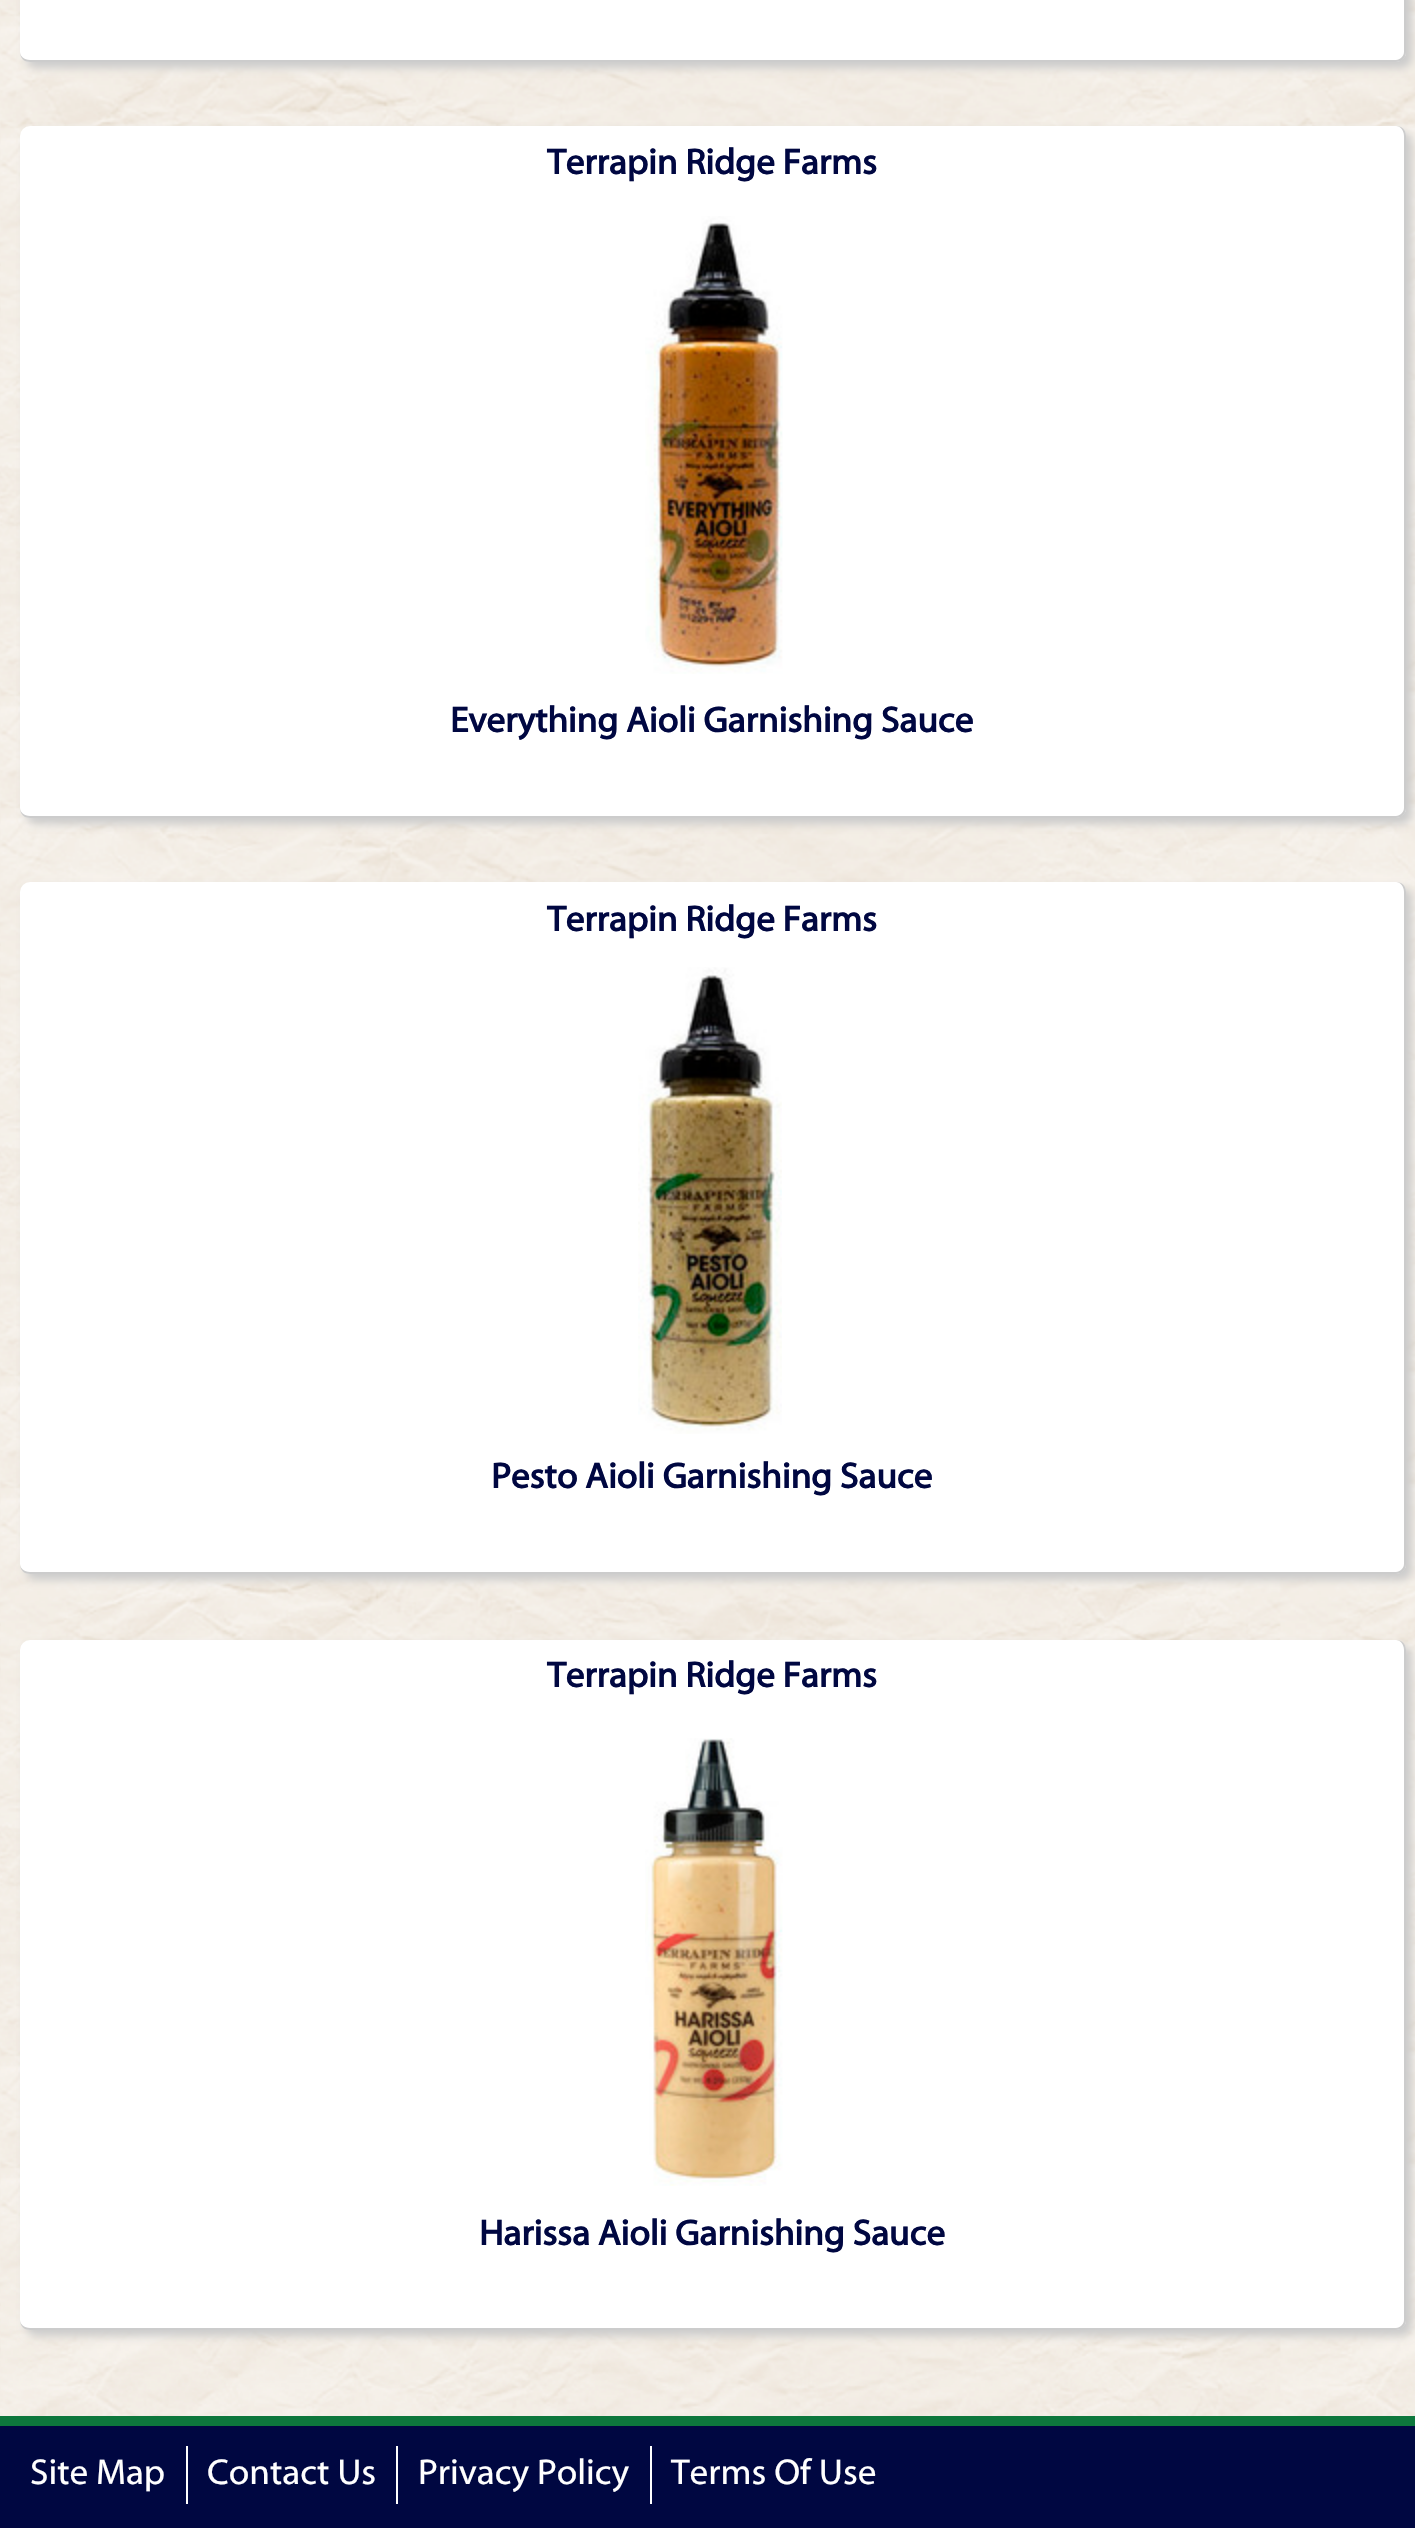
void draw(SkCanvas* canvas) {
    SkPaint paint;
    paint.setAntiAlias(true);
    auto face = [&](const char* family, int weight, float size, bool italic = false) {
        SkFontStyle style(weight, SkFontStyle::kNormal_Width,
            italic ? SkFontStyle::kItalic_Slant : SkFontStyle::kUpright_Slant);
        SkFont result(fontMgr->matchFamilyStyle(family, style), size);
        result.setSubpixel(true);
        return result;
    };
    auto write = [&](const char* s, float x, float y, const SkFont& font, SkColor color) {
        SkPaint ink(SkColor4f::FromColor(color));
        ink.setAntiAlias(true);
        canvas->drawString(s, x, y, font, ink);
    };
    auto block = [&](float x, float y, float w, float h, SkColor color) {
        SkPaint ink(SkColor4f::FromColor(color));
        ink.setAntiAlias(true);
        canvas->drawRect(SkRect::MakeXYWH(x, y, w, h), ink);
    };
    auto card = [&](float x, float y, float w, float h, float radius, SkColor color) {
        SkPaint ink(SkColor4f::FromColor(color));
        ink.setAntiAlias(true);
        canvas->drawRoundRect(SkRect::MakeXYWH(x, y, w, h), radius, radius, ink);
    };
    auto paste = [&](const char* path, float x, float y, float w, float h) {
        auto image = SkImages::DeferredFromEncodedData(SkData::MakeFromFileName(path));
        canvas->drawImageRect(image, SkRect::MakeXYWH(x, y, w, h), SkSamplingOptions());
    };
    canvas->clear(SK_ColorWHITE);
    paste("pic1.png", 0, 0, 1415, 2416);
    paint.setColor(SkColorSetRGB(204, 204, 204));
    paint.setMaskFilter(SkMaskFilter::MakeBlur(kNormal_SkBlurStyle, 4));
    canvas->drawRoundRect(SkRect::MakeXYWH(26, -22, 1386, 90), 10, 10, paint);
    paint.setMaskFilter(nullptr);
    card(20, -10, 1386, 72, 10, SK_ColorWHITE);
    canvas->drawPath(SkPathBuilder(SkPathFillType::kEvenOdd).moveTo(30, -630).lineTo(1396, -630).cubicTo(1402, -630, 1406, -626, 1406, -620).lineTo(1406, 52).cubicTo(1406, 58, 1402, 62, 1396, 62).lineTo(30, 62).cubicTo(24, 62, 20, 58, 20, 52).lineTo(20, -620).cubicTo(20, -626, 24, -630, 30, -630).close().moveTo(30, -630).lineTo(1396, -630).cubicTo(1400, -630, 1404, -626, 1404, -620).lineTo(1404, 52).cubicTo(1404, 56, 1400, 60, 1396, 60).lineTo(30, 60).cubicTo(24, 60, 20, 56, 20, 52).lineTo(20, -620).cubicTo(20, -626, 24, -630, 30, -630).close().detach(), paint);
    paint.setMaskFilter(SkMaskFilter::MakeBlur(kNormal_SkBlurStyle, 4));
    canvas->drawRoundRect(SkRect::MakeXYWH(26, 132, 1386, 692), 10, 10, paint);
    paint.setMaskFilter(nullptr);
    card(20, 126, 1386, 692, 10, SK_ColorWHITE);
    canvas->drawPath(SkPathBuilder(SkPathFillType::kEvenOdd).moveTo(30, 126).lineTo(1396, 126).cubicTo(1402, 126, 1406, 130, 1406, 136).lineTo(1406, 808).cubicTo(1406, 814, 1402, 818, 1396, 818).lineTo(30, 818).cubicTo(24, 818, 20, 814, 20, 808).lineTo(20, 136).cubicTo(20, 130, 24, 126, 30, 126).close().moveTo(30, 126).lineTo(1396, 126).cubicTo(1400, 126, 1404, 130, 1404, 136).lineTo(1404, 808).cubicTo(1404, 812, 1400, 816, 1396, 816).lineTo(30, 816).cubicTo(24, 816, 20, 812, 20, 808).lineTo(20, 136).cubicTo(20, 130, 24, 126, 30, 126).close().detach(), paint);
    auto kFont1 = face("Myriad", 700, 36);
    write("Terrapin Ridge Farms", 547, 174, kFont1, SkColorSetRGB(0, 7, 65));
    paste("pic2.png", 645, 216, 138, 458);
    write("Everything Aioli Garnishing Sauce", 450, 732, kFont1, SkColorSetRGB(0, 7, 65));
    paint.setMaskFilter(SkMaskFilter::MakeBlur(kNormal_SkBlurStyle, 4));
    canvas->drawRoundRect(SkRect::MakeXYWH(26, 888, 1386, 692), 10, 10, paint);
    paint.setMaskFilter(nullptr);
    card(20, 882, 1386, 692, 10, SK_ColorWHITE);
    canvas->drawPath(SkPathBuilder(SkPathFillType::kEvenOdd).moveTo(30, 882).lineTo(1396, 882).cubicTo(1402, 882, 1406, 886, 1406, 892).lineTo(1406, 1564).cubicTo(1406, 1570, 1402, 1574, 1396, 1574).lineTo(30, 1574).cubicTo(24, 1574, 20, 1570, 20, 1564).lineTo(20, 892).cubicTo(20, 886, 24, 882, 30, 882).close().moveTo(30, 882).lineTo(1396, 882).cubicTo(1400, 882, 1404, 886, 1404, 892).lineTo(1404, 1564).cubicTo(1404, 1568, 1400, 1572, 1396, 1572).lineTo(30, 1572).cubicTo(24, 1572, 20, 1568, 20, 1564).lineTo(20, 892).cubicTo(20, 886, 24, 882, 30, 882).close().detach(), paint);
    write("Terrapin Ridge Farms", 547, 931, kFont1, SkColorSetRGB(0, 7, 65));
    paste("pic3.png", 638, 967, 144, 467);
    write("Pesto Aioli Garnishing Sauce", 491, 1488, kFont1, SkColorSetRGB(0, 7, 65));
    paint.setMaskFilter(SkMaskFilter::MakeBlur(kNormal_SkBlurStyle, 4));
    canvas->drawRoundRect(SkRect::MakeXYWH(26, 1646, 1386, 690), 10, 10, paint);
    paint.setMaskFilter(nullptr);
    card(20, 1640, 1386, 690, 10, SK_ColorWHITE);
    canvas->drawPath(SkPathBuilder(SkPathFillType::kEvenOdd).moveTo(30, 1640).lineTo(1396, 1640).cubicTo(1402, 1640, 1406, 1644, 1406, 1650).lineTo(1406, 2320).cubicTo(1406, 2326, 1402, 2330, 1396, 2330).lineTo(30, 2330).cubicTo(24, 2330, 20, 2326, 20, 2320).lineTo(20, 1650).cubicTo(20, 1644, 24, 1640, 30, 1640).close().moveTo(30, 1640).lineTo(1396, 1640).cubicTo(1400, 1640, 1404, 1644, 1404, 1650).lineTo(1404, 2320).cubicTo(1404, 2324, 1400, 2328, 1396, 2328).lineTo(30, 2328).cubicTo(24, 2328, 20, 2324, 20, 2320).lineTo(20, 1650).cubicTo(20, 1644, 24, 1640, 30, 1640).close().detach(), paint);
    write("Terrapin Ridge Farms", 547, 1687, kFont1, SkColorSetRGB(0, 7, 65));
    paste("pic4.png", 645, 1738, 138, 448);
    write("Harissa Aioli Garnishing Sauce", 479, 2245, kFont1, SkColorSetRGB(0, 7, 65));
    block(0, 2426, 1415, 102, SkColorSetRGB(0, 7, 65));
    block(0, 2416, 1415, 10, SkColorSetRGB(13, 119, 60));
    block(186, 2446, 2, 58, SK_ColorWHITE);
    auto kFont2 = face("Myriad", 400, 36);
    write("Site Map", 30, 2484, kFont2, SK_ColorWHITE);
    block(396, 2446, 2, 58, SK_ColorWHITE);
    write("Contact Us", 207, 2484, kFont2, SK_ColorWHITE);
    block(650, 2446, 2, 58, SK_ColorWHITE);
    write("Privacy Policy", 418, 2484, kFont2, SK_ColorWHITE);
    write("Terms Of Use", 671, 2484, kFont2, SK_ColorWHITE);
}
